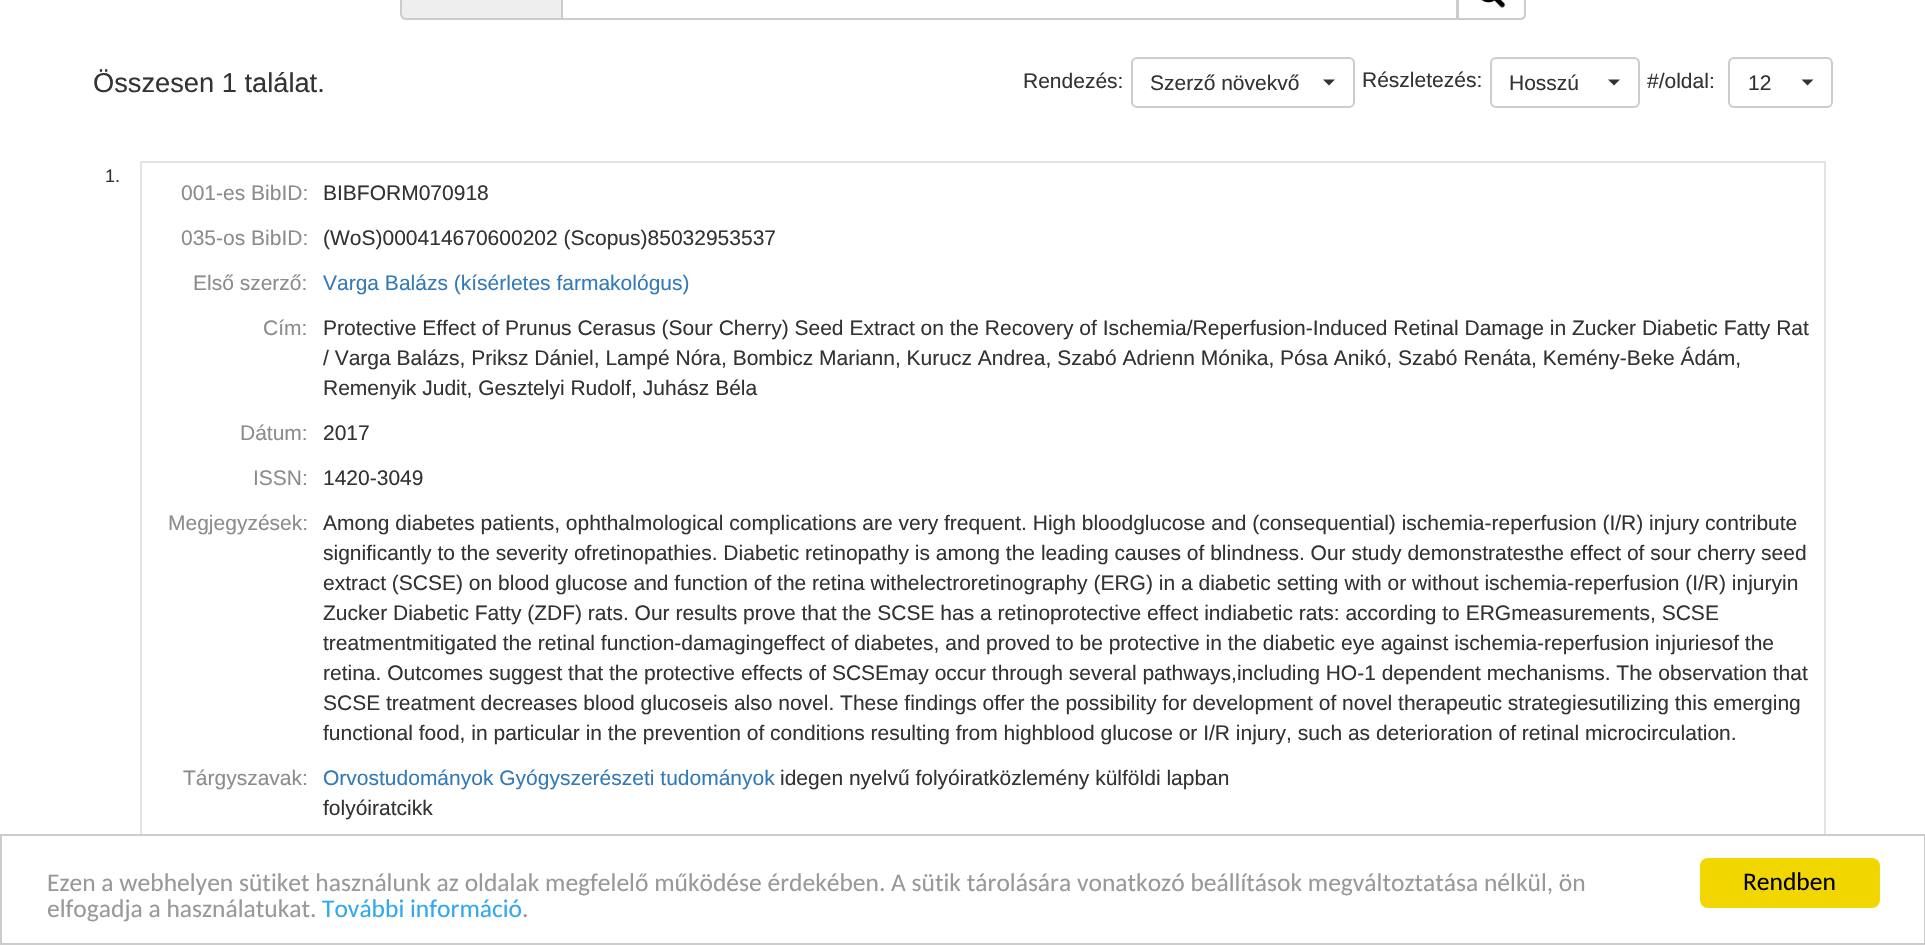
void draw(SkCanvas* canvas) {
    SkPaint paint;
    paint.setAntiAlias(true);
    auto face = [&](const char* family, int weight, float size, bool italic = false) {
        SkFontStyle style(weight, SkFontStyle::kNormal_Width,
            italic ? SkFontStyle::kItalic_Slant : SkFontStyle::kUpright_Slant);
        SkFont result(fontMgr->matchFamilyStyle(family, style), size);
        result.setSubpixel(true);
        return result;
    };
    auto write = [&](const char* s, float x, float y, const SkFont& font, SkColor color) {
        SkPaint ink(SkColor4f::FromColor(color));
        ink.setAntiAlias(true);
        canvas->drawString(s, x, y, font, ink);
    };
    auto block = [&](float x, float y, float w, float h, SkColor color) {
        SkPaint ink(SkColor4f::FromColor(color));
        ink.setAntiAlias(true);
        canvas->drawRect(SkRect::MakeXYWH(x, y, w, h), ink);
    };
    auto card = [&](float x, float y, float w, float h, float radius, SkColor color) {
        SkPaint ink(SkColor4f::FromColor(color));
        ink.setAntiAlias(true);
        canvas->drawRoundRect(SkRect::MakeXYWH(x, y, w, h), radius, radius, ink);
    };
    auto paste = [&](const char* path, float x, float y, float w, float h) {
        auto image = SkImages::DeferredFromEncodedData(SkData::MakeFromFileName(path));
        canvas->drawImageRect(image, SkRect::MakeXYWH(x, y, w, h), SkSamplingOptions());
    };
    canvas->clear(SK_ColorWHITE);
    paint.setColor(SkColorSetRGB(238, 238, 238));
    canvas->drawPath(SkPathBuilder().moveTo(407, -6).lineTo(561, -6).lineTo(561, 20).lineTo(407, 20).cubicTo(403.5f, 20, 401, 17.5f, 401, 14).lineTo(401, 0).cubicTo(401, -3.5f, 403.5f, -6, 407, -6).close().detach(), paint);
    paint.setColor(SkColorSetRGB(204, 204, 204));
    canvas->drawPath(SkPathBuilder(SkPathFillType::kEvenOdd).moveTo(406, -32).lineTo(561, -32).lineTo(561, 20).lineTo(406, 20).cubicTo(403, 20, 400, 17, 400, 14).lineTo(400, -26).cubicTo(400, -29, 403, -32, 406, -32).close().moveTo(406, -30).lineTo(561, -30).lineTo(561, 18).lineTo(406, 18).cubicTo(404, 18, 402, 16, 402, 14).lineTo(402, -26).cubicTo(402, -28, 404, -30, 406, -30).close().detach(), paint);
    paint.setStyle(SkPaint::kStroke_Style);
    paint.setStrokeWidth(2);
    canvas->drawRect(SkRect::MakeXYWH(562, -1, 895, 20), paint);
    paint.setStyle(SkPaint::kFill_Style);
    paint.setColor(SK_ColorWHITE);
    canvas->drawPath(SkPathBuilder().moveTo(1458, -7).lineTo(1520, -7).cubicTo(1523, -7, 1525, -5, 1525, -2).lineTo(1525, 14).cubicTo(1525, 17, 1523, 19, 1520, 19).lineTo(1458, 19).close().detach(), paint);
    paint.setStyle(SkPaint::kStroke_Style);
    paint.setColor(SkColorSetRGB(204, 204, 204));
    canvas->drawPath(SkPathBuilder().moveTo(1458, -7).lineTo(1520, -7).cubicTo(1523, -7, 1525, -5, 1525, -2).lineTo(1525, 14).cubicTo(1525, 17, 1523, 19, 1520, 19).lineTo(1458, 19).close().detach(), paint);
    paste("pic1.png", 1481, 0, 25, 8);
    auto kFont1 = face("Liberation Sans", 400, 27.25f);
    write("Összesen 1 találat.", 93, 92, kFont1, SkColorSetRGB(51, 51, 51));
    auto kFont2 = face("Liberation Sans", 400, 21);
    write("Rendezés:", 1023, 88, kFont2, SkColorSetRGB(51, 51, 51));
    canvas->drawRoundRect(SkRect::MakeXYWH(1132, 58, 222, 49), 5, 5, paint);
    write("Szerző növekvő", 1150, 90, kFont2, SkColorSetRGB(51, 51, 51));
    paint.setStyle(SkPaint::kFill_Style);
    paint.setColor(SkColorSetRGB(51, 51, 51));
    canvas->drawPath(SkPathBuilder().moveTo(1323, 79.5f).lineTo(1335, 79.5f).lineTo(1329, 85.5f).close().detach(), paint);
    write("Részletezés:", 1362, 87, kFont2, SkColorSetRGB(51, 51, 51));
    paint.setStyle(SkPaint::kStroke_Style);
    paint.setColor(SkColorSetRGB(204, 204, 204));
    canvas->drawRoundRect(SkRect::MakeXYWH(1491, 58, 148, 49), 5, 5, paint);
    write("Hosszú", 1509, 90, kFont2, SkColorSetRGB(51, 51, 51));
    paint.setStyle(SkPaint::kFill_Style);
    paint.setColor(SkColorSetRGB(51, 51, 51));
    canvas->drawPath(SkPathBuilder().moveTo(1608, 79.5f).lineTo(1620, 79.5f).lineTo(1614, 85.5f).close().detach(), paint);
    write("#/oldal:", 1647, 88, kFont2, SkColorSetRGB(51, 51, 51));
    paint.setStyle(SkPaint::kStroke_Style);
    paint.setColor(SkColorSetRGB(204, 204, 204));
    canvas->drawRoundRect(SkRect::MakeXYWH(1729, 58, 103, 49), 5, 5, paint);
    write("12", 1748, 90, kFont2, SkColorSetRGB(51, 51, 51));
    paint.setStyle(SkPaint::kFill_Style);
    paint.setColor(SkColorSetRGB(51, 51, 51));
    canvas->drawPath(SkPathBuilder().moveTo(1801.5f, 79.5f).lineTo(1813.5f, 79.5f).lineTo(1807.5f, 85.5f).close().detach(), paint);
    auto kFont3 = face("Liberation Sans", 400, 18);
    write("1.", 105, 182, kFont3, SkColorSetRGB(51, 51, 51));
    block(140, 161, 1686, 2, SkColorSetRGB(227, 227, 227));
    block(1824, 161, 2, 673, SkColorSetRGB(227, 227, 227));
    block(140, 161, 2, 673, SkColorSetRGB(227, 227, 227));
    write("001-es BibID:", 181, 200, kFont2, SkColorSetRGB(140, 140, 140));
    write("BIBFORM070918", 323, 200, kFont2, SkColorSetRGB(51, 51, 51));
    write("035-os BibID:", 181, 245, kFont2, SkColorSetRGB(140, 140, 140));
    write("(WoS)000414670600202 (Scopus)85032953537", 323, 245, kFont2, SkColorSetRGB(51, 51, 51));
    write("Első szerző:", 193, 290, kFont2, SkColorSetRGB(140, 140, 140));
    write("Varga Balázs (kísérletes farmakológus)", 323, 290, kFont2, SkColorSetRGB(51, 122, 183));
    write("Cím:", 263, 335, kFont2, SkColorSetRGB(140, 140, 140));
    write("Protective Effect of Prunus Cerasus (Sour Cherry) Seed Extract on the Recovery of Ischemia/Reperfusion-Induced Retinal Damage in Zucker Diabetic Fatty Rat", 323, 335, kFont2, SkColorSetRGB(51, 51, 51));
    write("/ Varga Balázs, Priksz Dániel, Lampé Nóra, Bombicz Mariann, Kurucz Andrea, Szabó Adrienn Mónika, Pósa Anikó, Szabó Renáta, Kemény-Beke Ádám,", 323, 365, kFont2, SkColorSetRGB(51, 51, 51));
    write("Remenyik Judit, Gesztelyi Rudolf, Juhász Béla", 323, 395, kFont2, SkColorSetRGB(51, 51, 51));
    write("Dátum:", 240, 440, kFont2, SkColorSetRGB(140, 140, 140));
    write("2017", 323, 440, kFont2, SkColorSetRGB(51, 51, 51));
    write("ISSN:", 253, 485, kFont2, SkColorSetRGB(140, 140, 140));
    write("1420-3049", 323, 485, kFont2, SkColorSetRGB(51, 51, 51));
    write("Megjegyzések:", 168, 530, kFont2, SkColorSetRGB(140, 140, 140));
    write("Among diabetes patients, ophthalmological complications are very frequent. High bloodglucose and (consequential) ischemia-reperfusion (I/R) injury contribute", 323, 530, kFont2, SkColorSetRGB(51, 51, 51));
    write("significantly to the severity ofretinopathies. Diabetic retinopathy is among the leading causes of blindness. Our study demonstratesthe effect of sour cherry seed", 323, 560, kFont2, SkColorSetRGB(51, 51, 51));
    write("extract (SCSE) on blood glucose and function of the retina withelectroretinography (ERG) in a diabetic setting with or without ischemia-reperfusion (I/R) injuryin", 323, 590, kFont2, SkColorSetRGB(51, 51, 51));
    write("Zucker Diabetic Fatty (ZDF) rats. Our results prove that the SCSE has a retinoprotective effect indiabetic rats: according to ERGmeasurements, SCSE", 323, 620, kFont2, SkColorSetRGB(51, 51, 51));
    write("treatmentmitigated the retinal function-damagingeffect of diabetes, and proved to be protective in the diabetic eye against ischemia-reperfusion injuriesof the", 323, 650, kFont2, SkColorSetRGB(51, 51, 51));
    write("retina. Outcomes suggest that the protective effects of SCSEmay occur through several pathways,including HO-1 dependent mechanisms. The observation that", 323, 680, kFont2, SkColorSetRGB(51, 51, 51));
    write("SCSE treatment decreases blood glucoseis also novel. These findings offer the possibility for development of novel therapeutic strategiesutilizing this emerging", 323, 710, kFont2, SkColorSetRGB(51, 51, 51));
    write("functional food, in particular in the prevention of conditions resulting from highblood glucose or I/R injury, such as deterioration of retinal microcirculation.", 323, 740, kFont2, SkColorSetRGB(51, 51, 51));
    write("Tárgyszavak:", 183, 785, kFont2, SkColorSetRGB(140, 140, 140));
    write("Orvostudományok Gyógyszerészeti tudományok", 323, 785, kFont2, SkColorSetRGB(51, 122, 183));
    write("idegen nyelvű folyóiratközlemény külföldi lapban", 780, 785, kFont2, SkColorSetRGB(51, 51, 51));
    write("folyóiratcikk", 323, 815, kFont2, SkColorSetRGB(51, 51, 51));
    paint.setStyle(SkPaint::kStroke_Style);
    paint.setColor(SkColorSetRGB(204, 204, 204));
    canvas->drawRect(SkRect::MakeXYWH(1, 835, 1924, 109), paint);
    auto kFont4 = face("Carlito", 400, 25.5f);
    write("Ezen a webhelyen sütiket használunk az oldalak megfelelő működése érdekében. A sütik tárolására vonatkozó beállítások megváltoztatása nélkül, ön", 47, 891, kFont4, SkColorSetRGB(153, 153, 153));
    write("elfogadja a használatukat.", 47, 917, kFont4, SkColorSetRGB(153, 153, 153));
    write("További információ", 322, 917, kFont4, SkColorSetRGB(49, 168, 240));
    write(".", 522, 917, kFont4, SkColorSetRGB(153, 153, 153));
    card(1700, 858, 180, 50, 8, SkColorSetRGB(241, 214, 0));
    write("Rendben", 1743, 890, kFont4, SK_ColorBLACK);
}
